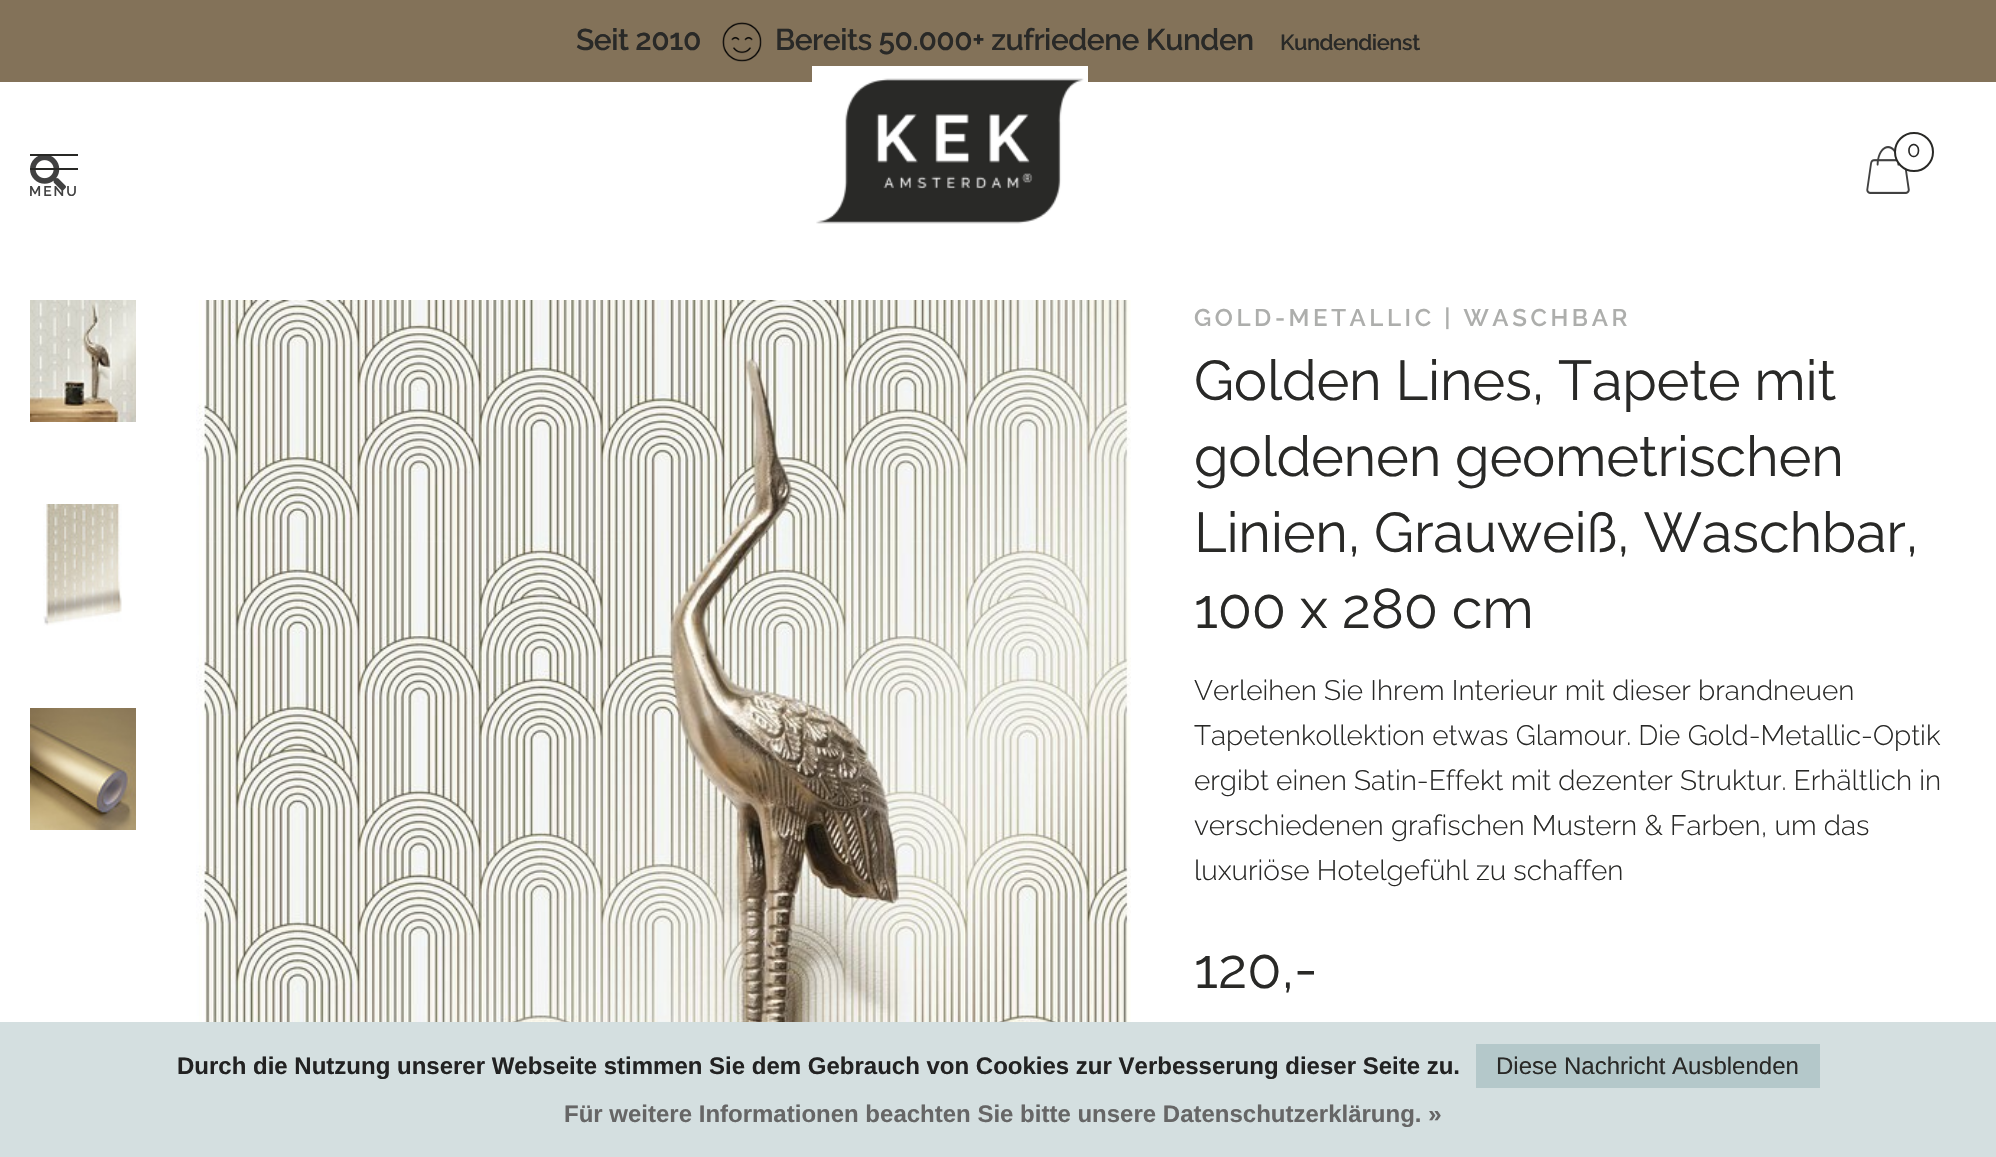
void draw(SkCanvas* canvas) {
    SkPaint paint;
    paint.setAntiAlias(true);
    auto face = [&](const char* family, int weight, float size, bool italic = false) {
        SkFontStyle style(weight, SkFontStyle::kNormal_Width,
            italic ? SkFontStyle::kItalic_Slant : SkFontStyle::kUpright_Slant);
        SkFont result(fontMgr->matchFamilyStyle(family, style), size);
        result.setSubpixel(true);
        return result;
    };
    auto write = [&](const char* s, float x, float y, const SkFont& font, SkColor color) {
        SkPaint ink(SkColor4f::FromColor(color));
        ink.setAntiAlias(true);
        canvas->drawString(s, x, y, font, ink);
    };
    auto writeSpaced = [&](const char* s, float x, float y, const SkFont& font, const SkPaint& ink, float letter, float word) {
        std::vector<SkGlyphID> glyphs(font.countText(s, strlen(s), SkTextEncoding::kUTF8));
        std::vector<float> xs(glyphs.size());
        font.textToGlyphs(s, strlen(s), SkTextEncoding::kUTF8, glyphs);
        font.getXPos(glyphs, xs, x);
        float extra = 0;
        for (size_t i = 0; i < glyphs.size(); i++) {
            xs[i] += extra;
            extra += letter + word * (glyphs[i] == font.unicharToGlyph(' '));
        }
        canvas->drawTextBlob(SkTextBlob::MakeFromPosHGlyphs(glyphs, xs, y, font), 0, 0, ink);
    };
    auto block = [&](float x, float y, float w, float h, SkColor color) {
        SkPaint ink(SkColor4f::FromColor(color));
        ink.setAntiAlias(true);
        canvas->drawRect(SkRect::MakeXYWH(x, y, w, h), ink);
    };
    auto paste = [&](const char* path, float x, float y, float w, float h) {
        auto image = SkImages::DeferredFromEncodedData(SkData::MakeFromFileName(path));
        canvas->drawImageRect(image, SkRect::MakeXYWH(x, y, w, h), SkSamplingOptions());
    };
    canvas->clear(SK_ColorWHITE);
    block(0, 0, 1996, 82, SkColorSetRGB(131, 114, 89));
    auto kFont1 = face("Raleway", 600, 30);
    paint.setColor(SkColorSetRGB(41, 41, 39));
    writeSpaced("Seit 2010", 576, 50, kFont1, paint, -0.5f, 0);
    paste("pic1.png", 722, 22, 40, 40);
    writeSpaced("Bereits 50.000+ zufriedene Kunden", 775, 50, kFont1, paint, -0.5f, 0);
    auto kFont2 = face("Raleway", 600, 22);
    writeSpaced("Kundendienst", 1280, 50, kFont2, paint, -0.5f, 0);
    paste("pic2.png", 812, 66, 276, 158);
    paste("pic3.png", 1866, 146, 44, 48);
    paint.setColor(SK_ColorWHITE);
    canvas->drawCircle(1914, 152, 19, paint);
    paint.setStyle(SkPaint::kStroke_Style);
    paint.setStrokeWidth(2);
    paint.setColor(SkColorSetRGB(41, 41, 38));
    canvas->drawCircle(1914, 152, 19, paint);
    auto kFont3 = face("Raleway", 400, 22);
    write("0", 1907, 157, kFont3, SkColorSetRGB(41, 41, 39));
    paste("pic4.png", 30, 156, 36, 35);
    block(30, 154, 48, 2, SkColorSetRGB(40, 40, 37));
    block(30, 168, 48, 2, SkColorSetRGB(40, 40, 37));
    auto kFont4 = face("Raleway", 600, 14);
    paint.setStyle(SkPaint::kFill_Style);
    paint.setColor(SkColorSetRGB(65, 65, 65));
    writeSpaced("MENU", 29, 196, kFont4, paint, 2, 0);
    paste("pic5.png", 30, 300, 106, 122);
    paste("pic6.png", 43, 504, 79, 122);
    paste("pic7.png", 30, 708, 106, 122);
    paste("pic8.png", 196, 300, 935, 722);
    auto kFont5 = face("Raleway", 600, 24);
    paint.setColor(SkColorSetRGB(173, 174, 172));
    writeSpaced("GOLD-METALLIC | WASCHBAR", 1194, 326, kFont5, paint, 3.6f, 0);
    auto kFont6 = face("Raleway", 400, 56);
    paint.setColor(SkColorSetRGB(41, 41, 39));
    writeSpaced("Golden Lines, Tapete mit", 1194, 400, kFont6, paint, -0.25f, 0);
    writeSpaced("goldenen geometrischen", 1194, 476, kFont6, paint, -0.25f, 0);
    writeSpaced("Linien, Grauweiß, Waschbar,", 1194, 552, kFont6, paint, -0.25f, 0);
    writeSpaced("100 x 280 cm", 1194, 628, kFont6, paint, -0.25f, 0);
    auto kFont7 = face("Raleway", 300, 28);
    write("Verleihen Sie Ihrem Interieur mit dieser brandneuen", 1194, 700, kFont7, SkColorSetRGB(41, 41, 39));
    write("Tapetenkollektion etwas Glamour. Die Gold-Metallic-Optik", 1194, 745, kFont7, SkColorSetRGB(41, 41, 39));
    write("ergibt einen Satin-Effekt mit dezenter Struktur. Erhältlich in", 1194, 790, kFont7, SkColorSetRGB(41, 41, 39));
    write("verschiedenen grafischen Mustern & Farben, um das", 1194, 835, kFont7, SkColorSetRGB(41, 41, 39));
    write("luxuriöse Hotelgefühl zu schaffen", 1194, 880, kFont7, SkColorSetRGB(41, 41, 39));
    write("120,-", 1194, 988, kFont6, SkColorSetRGB(41, 41, 39));
    block(0, 1022, 1996, 135, SkColorSetRGB(212, 223, 224));
    auto kFont8 = face("Liberation Sans", 700, 24);
    write("Durch die Nutzung unserer Webseite stimmen Sie dem Gebrauch von Cookies zur Verbesserung dieser Seite zu.", 177, 1074, kFont8, SkColorSetRGB(34, 34, 34));
    block(1476, 1044, 344, 44, SkColorSetRGB(180, 200, 202));
    auto kFont9 = face("Liberation Sans", 400, 24);
    write("Diese Nachricht Ausblenden", 1496, 1074, kFont9, SkColorSetRGB(41, 41, 39));
    write("Für weitere Informationen beachten Sie bitte unsere Datenschutzerklärung. »", 564, 1122, kFont8, SkColorSetRGB(102, 102, 102));
}
